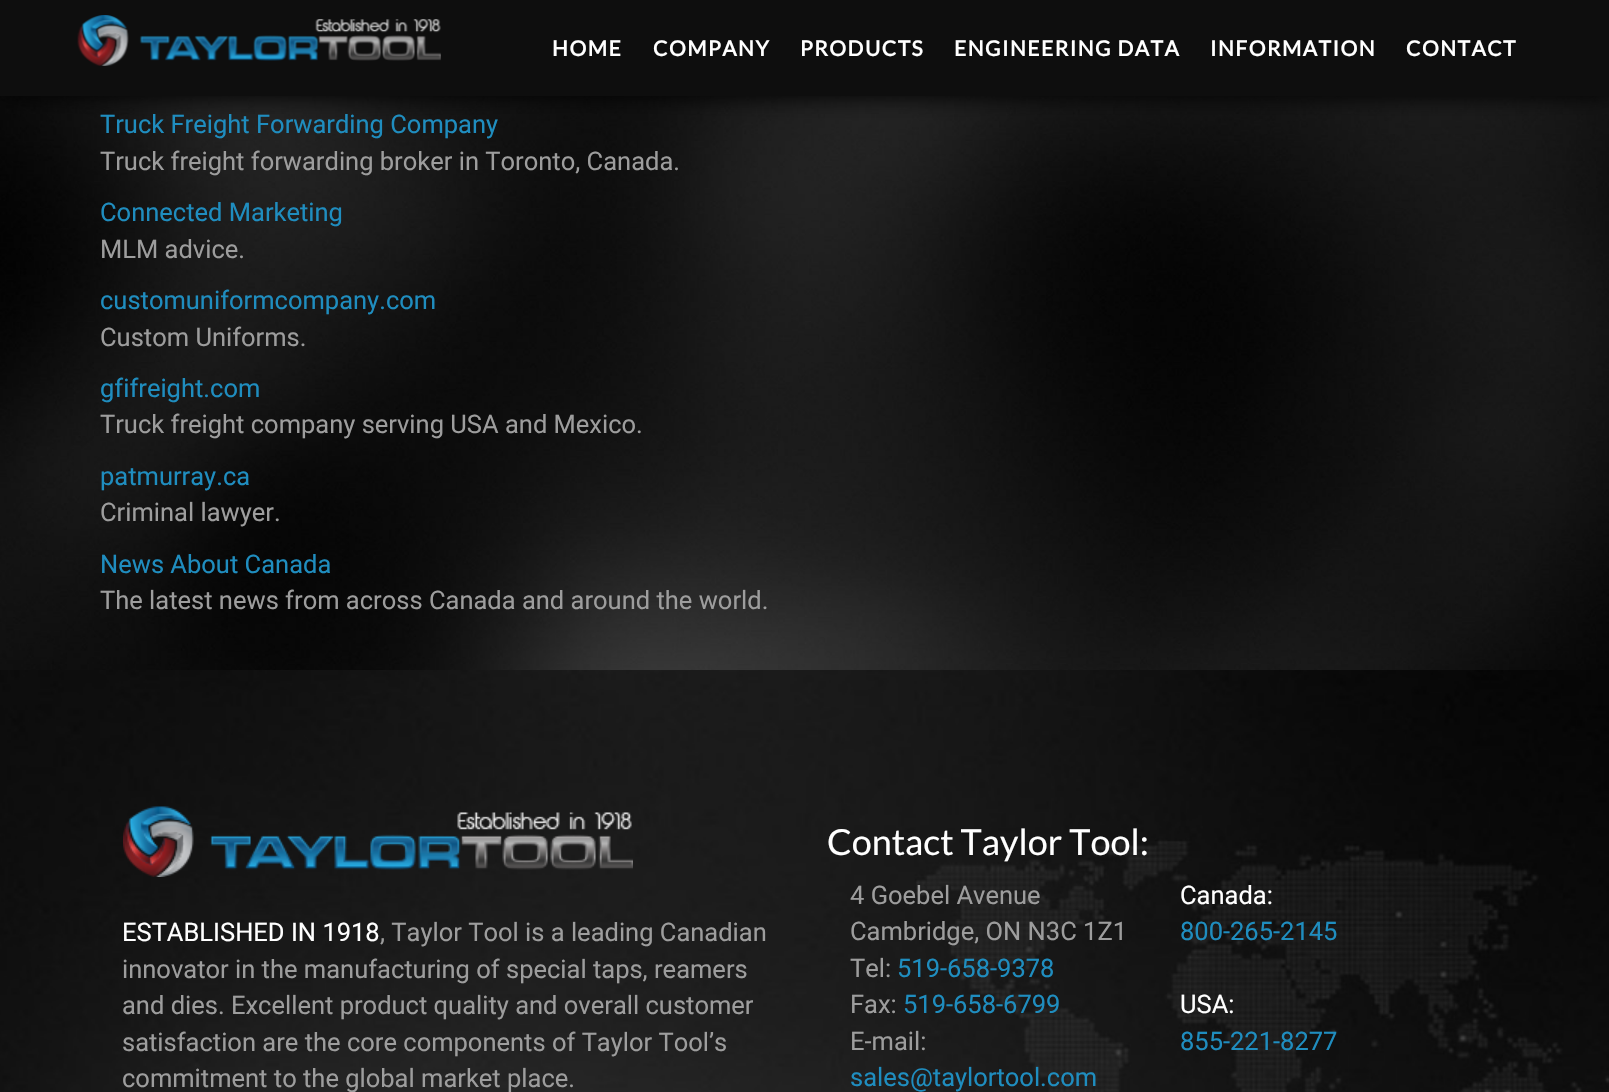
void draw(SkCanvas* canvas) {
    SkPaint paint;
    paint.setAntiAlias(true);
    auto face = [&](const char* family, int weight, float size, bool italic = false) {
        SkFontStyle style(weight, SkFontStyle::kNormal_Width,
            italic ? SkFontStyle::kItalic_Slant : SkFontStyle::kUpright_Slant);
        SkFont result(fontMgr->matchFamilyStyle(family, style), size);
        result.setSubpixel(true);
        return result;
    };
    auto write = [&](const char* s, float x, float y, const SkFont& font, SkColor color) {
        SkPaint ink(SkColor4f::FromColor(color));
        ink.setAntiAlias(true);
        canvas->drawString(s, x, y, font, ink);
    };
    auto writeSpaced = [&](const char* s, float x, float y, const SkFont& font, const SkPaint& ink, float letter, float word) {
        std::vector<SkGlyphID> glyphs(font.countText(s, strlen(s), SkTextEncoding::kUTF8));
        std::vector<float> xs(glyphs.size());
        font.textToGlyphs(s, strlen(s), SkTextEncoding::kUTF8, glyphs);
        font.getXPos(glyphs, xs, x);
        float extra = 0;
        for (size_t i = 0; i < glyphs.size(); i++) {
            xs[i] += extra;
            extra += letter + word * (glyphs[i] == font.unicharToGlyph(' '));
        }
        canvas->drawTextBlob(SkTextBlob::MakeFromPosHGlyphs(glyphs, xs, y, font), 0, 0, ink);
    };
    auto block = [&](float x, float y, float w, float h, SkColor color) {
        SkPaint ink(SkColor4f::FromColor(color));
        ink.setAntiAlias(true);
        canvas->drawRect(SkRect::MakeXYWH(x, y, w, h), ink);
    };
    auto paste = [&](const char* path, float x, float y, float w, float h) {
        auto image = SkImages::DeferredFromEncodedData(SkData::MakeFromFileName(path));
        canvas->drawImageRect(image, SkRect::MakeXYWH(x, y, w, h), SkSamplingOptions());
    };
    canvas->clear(SK_ColorWHITE);
    paste("pic1.png", 0, 96, 1609, 574);
    paint.setColor(SK_ColorBLACK);
    paint.setMaskFilter(SkMaskFilter::MakeBlur(kNormal_SkBlurStyle, 11));
    canvas->drawRect(SkRect::MakeXYWH(0, 0, 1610, 96), paint);
    paint.setMaskFilter(nullptr);
    block(0, 0, 1609, 96, SkColorSetRGB(14, 14, 14));
    paste("pic2.png", 77, 15, 364, 51);
    auto kFont1 = face("Lato", 700, 21);
    paint.setColor(SK_ColorWHITE);
    writeSpaced("HOME", 552, 56, kFont1, paint, 1.5f, 0);
    writeSpaced("COMPANY", 653, 56, kFont1, paint, 1.5f, 0);
    writeSpaced("PRODUCTS", 800, 56, kFont1, paint, 1.5f, 0);
    writeSpaced("ENGINEERING DATA", 954, 56, kFont1, paint, 1.5f, 0);
    writeSpaced("INFORMATION", 1210, 56, kFont1, paint, 1.5f, 0);
    writeSpaced("CONTACT", 1406, 56, kFont1, paint, 1.5f, 0);
    auto kFont2 = face("Roboto", 400, 25.5f);
    write("Truck Freight Forwarding Company", 100, 133, kFont2, SkColorSetRGB(31, 141, 191));
    write("Truck freight forwarding broker in Toronto, Canada.", 100, 170, kFont2, SkColorSetRGB(157, 157, 157));
    write("Connected Marketing", 100, 221, kFont2, SkColorSetRGB(31, 141, 191));
    write("MLM advice.", 100, 258, kFont2, SkColorSetRGB(157, 157, 157));
    write("customuniformcompany.com", 100, 309, kFont2, SkColorSetRGB(31, 141, 191));
    write("Custom Uniforms.", 100, 346, kFont2, SkColorSetRGB(157, 157, 157));
    write("gfifreight.com", 100, 397, kFont2, SkColorSetRGB(31, 141, 191));
    write("Truck freight company serving USA and Mexico.", 100, 433, kFont2, SkColorSetRGB(157, 157, 157));
    write("patmurray.ca", 100, 485, kFont2, SkColorSetRGB(31, 141, 191));
    write("Criminal lawyer.", 100, 521, kFont2, SkColorSetRGB(157, 157, 157));
    write("News About Canada", 100, 573, kFont2, SkColorSetRGB(31, 141, 191));
    write("The latest news from across Canada and around the world.", 100, 609, kFont2, SkColorSetRGB(157, 157, 157));
    paste("pic3.png", 0, 670, 1609, 422);
    paste("pic4.png", 123, 806, 510, 71);
    write("ESTABLISHED IN 1918", 122, 941, kFont2, SK_ColorWHITE);
    write(", Taylor Tool is a leading Canadian", 380, 941, kFont2, SkColorSetRGB(157, 157, 157));
    write("innovator in the manufacturing of special taps, reamers", 122, 978, kFont2, SkColorSetRGB(157, 157, 157));
    write("and dies. Excellent product quality and overall customer", 122, 1014, kFont2, SkColorSetRGB(157, 157, 157));
    write("satisfaction are the core components of Taylor Tool’s", 122, 1051, kFont2, SkColorSetRGB(157, 157, 157));
    write("commitment to the global market place.", 122, 1087, kFont2, SkColorSetRGB(157, 157, 157));
    auto kFont3 = face("Lato", 400, 36);
    write("Contact Taylor Tool:", 827, 855, kFont3, SK_ColorWHITE);
    write("4 Goebel Avenue", 850, 904, kFont2, SkColorSetRGB(157, 157, 157));
    write("Cambridge, ON N3C 1Z1", 850, 940, kFont2, SkColorSetRGB(157, 157, 157));
    write("Tel:", 850, 977, kFont2, SkColorSetRGB(157, 157, 157));
    write("519-658-9378", 897, 977, kFont2, SkColorSetRGB(31, 141, 191));
    write("Fax:", 850, 1013, kFont2, SkColorSetRGB(157, 157, 157));
    write("519-658-6799", 903, 1013, kFont2, SkColorSetRGB(31, 141, 191));
    write("E-mail:", 850, 1050, kFont2, SkColorSetRGB(157, 157, 157));
    write("sales@taylortool.com", 850, 1086, kFont2, SkColorSetRGB(31, 141, 191));
    write("Canada:", 1180, 904, kFont2, SK_ColorWHITE);
    write("800-265-2145", 1180, 940, kFont2, SkColorSetRGB(31, 141, 191));
    write("USA:", 1180, 1013, kFont2, SK_ColorWHITE);
    write("855-221-8277", 1180, 1050, kFont2, SkColorSetRGB(31, 141, 191));
}
